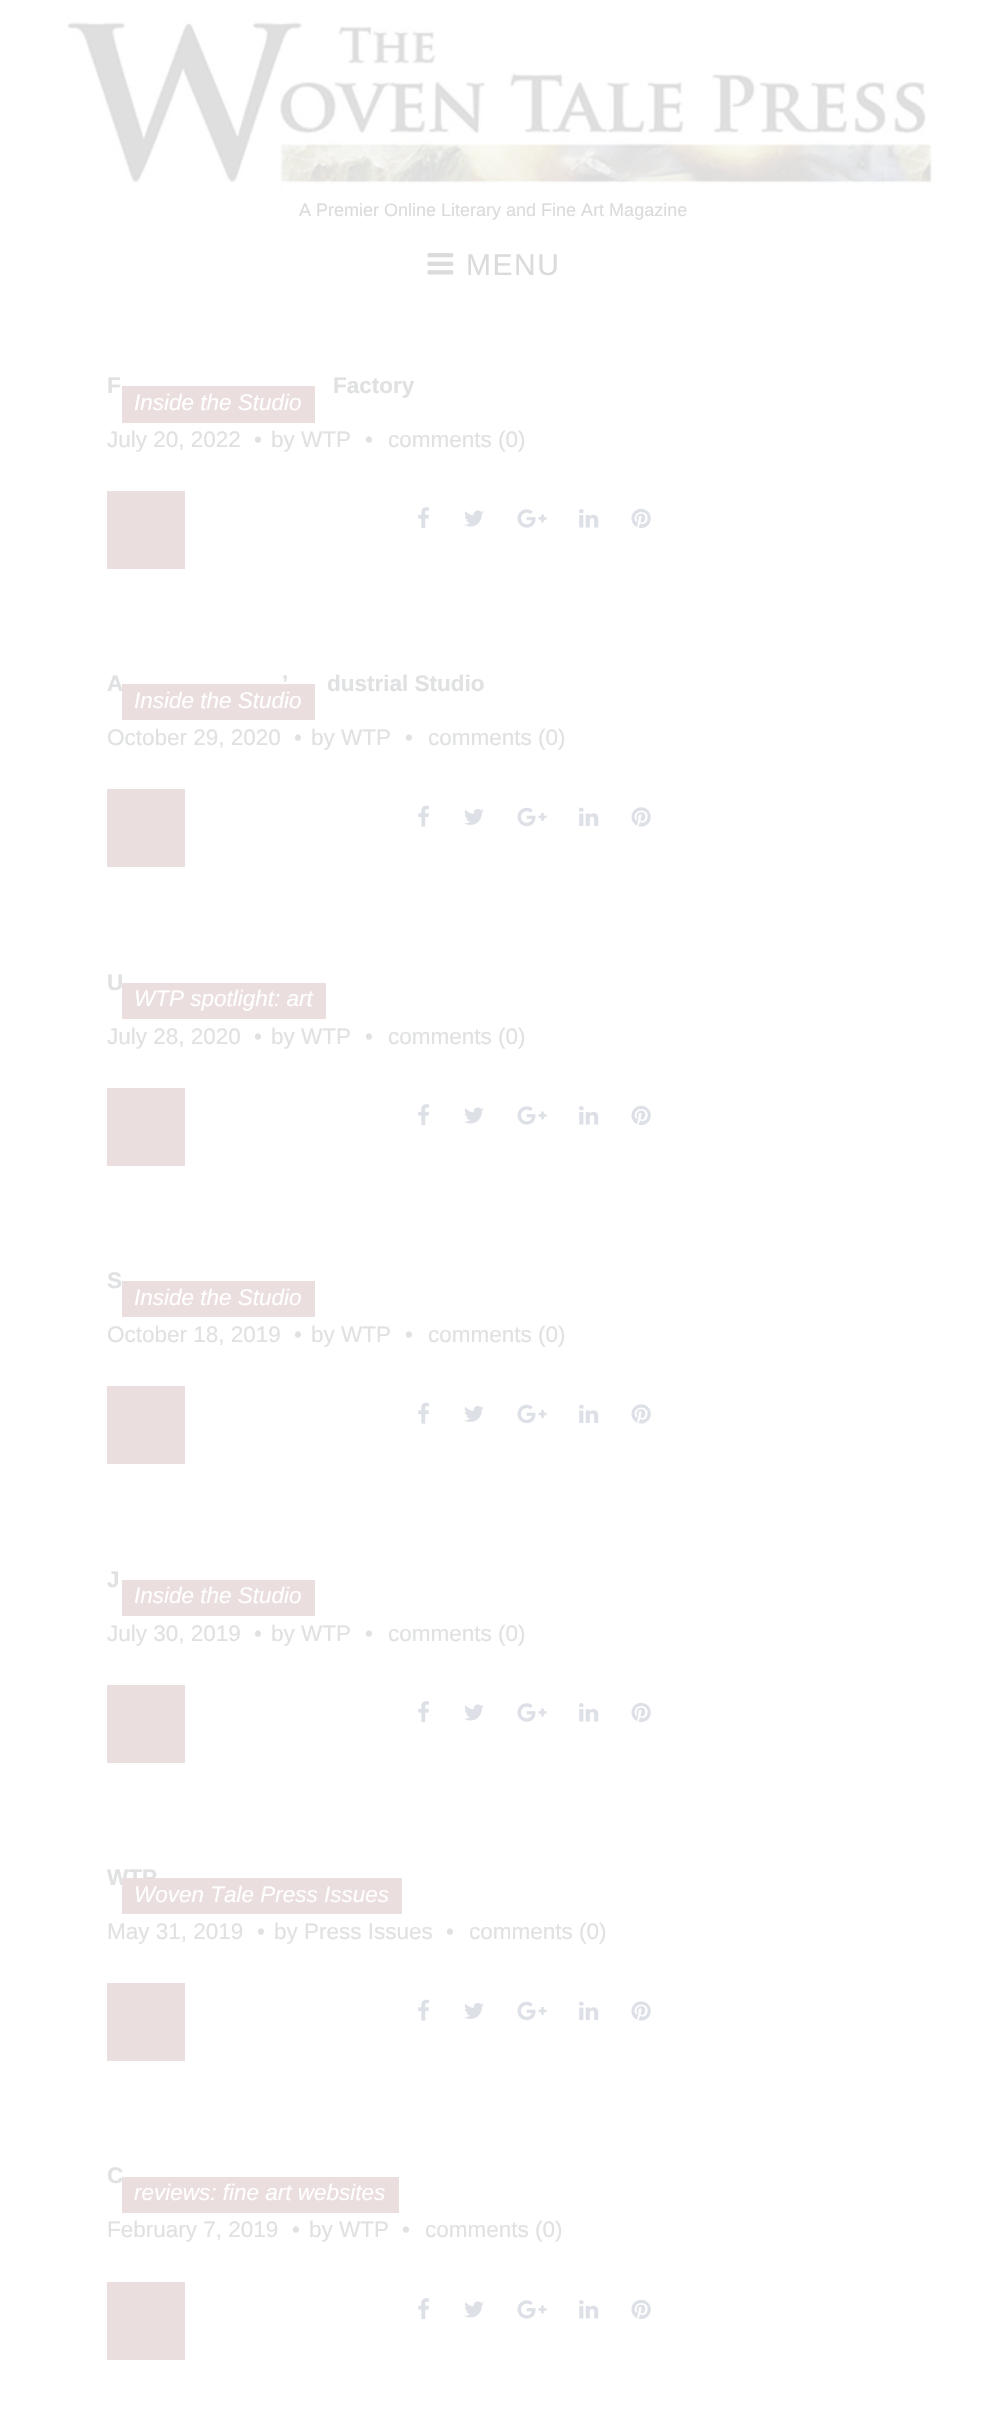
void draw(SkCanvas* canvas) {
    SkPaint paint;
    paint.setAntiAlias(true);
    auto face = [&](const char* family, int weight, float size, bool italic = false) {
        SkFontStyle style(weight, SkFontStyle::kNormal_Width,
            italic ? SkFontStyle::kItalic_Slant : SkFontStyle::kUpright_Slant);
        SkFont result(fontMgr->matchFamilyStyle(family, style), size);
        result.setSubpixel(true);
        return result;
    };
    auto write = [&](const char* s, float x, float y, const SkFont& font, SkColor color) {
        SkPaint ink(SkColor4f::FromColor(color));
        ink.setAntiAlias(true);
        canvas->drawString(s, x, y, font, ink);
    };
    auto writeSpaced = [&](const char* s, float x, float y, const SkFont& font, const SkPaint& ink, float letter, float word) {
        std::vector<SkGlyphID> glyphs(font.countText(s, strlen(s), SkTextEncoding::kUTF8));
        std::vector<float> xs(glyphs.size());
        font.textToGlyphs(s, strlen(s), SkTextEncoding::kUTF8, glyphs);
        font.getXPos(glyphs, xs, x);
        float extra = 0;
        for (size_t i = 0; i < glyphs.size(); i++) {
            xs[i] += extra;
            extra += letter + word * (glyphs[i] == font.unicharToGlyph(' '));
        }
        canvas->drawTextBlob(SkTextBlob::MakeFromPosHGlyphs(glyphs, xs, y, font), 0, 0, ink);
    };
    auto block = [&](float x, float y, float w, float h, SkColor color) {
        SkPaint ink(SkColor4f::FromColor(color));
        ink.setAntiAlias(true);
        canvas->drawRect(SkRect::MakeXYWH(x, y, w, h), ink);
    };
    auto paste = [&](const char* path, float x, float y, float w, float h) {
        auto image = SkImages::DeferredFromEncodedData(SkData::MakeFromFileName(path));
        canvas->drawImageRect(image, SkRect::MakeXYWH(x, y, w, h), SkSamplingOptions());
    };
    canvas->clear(SK_ColorWHITE);
    paste("pic1.png", 64, 15, 872, 182);
    auto kFont1 = face("Liberation Sans", 400, 18);
    write("A Premier Online Literary and Fine Art Magazine", 299, 216, kFont1, SkColorSetRGB(219, 219, 219));
    paste("pic2.png", 427, 253, 27, 22);
    auto kFont2 = face("Liberation Sans", 400, 30);
    paint.setColor(SkColorSetRGB(219, 219, 219));
    writeSpaced("MENU", 466, 275, kFont2, paint, 1.5f, 0);
    auto kFont3 = face("Liberation Sans", 700, 22.5f);
    write("F", 107, 393, kFont3, SkColorSetRGB(224, 225, 226));
    write("Factory", 333, 393, kFont3, SkColorSetRGB(224, 225, 226));
    block(122, 386, 193, 37, SkColorSetRGB(235, 222, 222));
    auto kFont4 = face("Liberation Sans", 400, 22.5f, true);
    write("Inside the Studio", 134, 410, kFont4, SK_ColorWHITE);
    auto kFont5 = face("Liberation Sans", 400, 22.5f);
    write("July 20, 2022", 107, 447, kFont5, SkColorSetRGB(224, 225, 226));
    write("•", 254, 447, kFont5, SkColorSetRGB(224, 225, 226));
    write("by WTP", 271, 447, kFont5, SkColorSetRGB(224, 225, 226));
    write("•", 365, 447, kFont5, SkColorSetRGB(224, 225, 226));
    write("comments (0)", 388, 447, kFont5, SkColorSetRGB(224, 225, 226));
    block(107, 491, 78, 78, SkColorSetRGB(235, 222, 222));
    paste("pic3.png", 418, 507, 12, 22);
    paste("pic4.png", 464, 510, 20, 17);
    paste("pic5.png", 517, 509, 30, 19);
    paste("pic6.png", 579, 509, 20, 19);
    paste("pic7.png", 631, 508, 20, 21);
    write("A", 107, 691, kFont3, SkColorSetRGB(224, 225, 226));
    write("’", 282, 691, kFont3, SkColorSetRGB(224, 225, 226));
    write("dustrial Studio", 327, 691, kFont3, SkColorSetRGB(224, 225, 226));
    block(122, 684, 193, 36, SkColorSetRGB(235, 222, 222));
    write("Inside the Studio", 134, 708, kFont4, SK_ColorWHITE);
    write("October 29, 2020", 107, 745, kFont5, SkColorSetRGB(224, 225, 226));
    write("•", 294, 745, kFont5, SkColorSetRGB(224, 225, 226));
    write("by WTP", 311, 745, kFont5, SkColorSetRGB(224, 225, 226));
    write("•", 405, 745, kFont5, SkColorSetRGB(224, 225, 226));
    write("comments (0)", 428, 745, kFont5, SkColorSetRGB(224, 225, 226));
    block(107, 789, 78, 78, SkColorSetRGB(235, 222, 222));
    paste("pic8.png", 418, 805, 12, 22);
    paste("pic9.png", 464, 808, 20, 17);
    paste("pic10.png", 517, 807, 30, 20);
    paste("pic11.png", 579, 807, 20, 19);
    paste("pic12.png", 631, 807, 20, 20);
    write("U", 107, 990, kFont3, SkColorSetRGB(224, 225, 226));
    block(122, 983, 204, 36, SkColorSetRGB(235, 222, 222));
    write("WTP spotlight: art", 134, 1006, kFont4, SK_ColorWHITE);
    write("July 28, 2020", 107, 1044, kFont5, SkColorSetRGB(224, 225, 226));
    write("•", 254, 1044, kFont5, SkColorSetRGB(224, 225, 226));
    write("by WTP", 271, 1044, kFont5, SkColorSetRGB(224, 225, 226));
    write("•", 365, 1044, kFont5, SkColorSetRGB(224, 225, 226));
    write("comments (0)", 388, 1044, kFont5, SkColorSetRGB(224, 225, 226));
    block(107, 1088, 78, 78, SkColorSetRGB(235, 222, 222));
    paste("pic3.png", 418, 1104, 12, 22);
    paste("pic4.png", 464, 1107, 20, 17);
    paste("pic5.png", 517, 1106, 30, 19);
    paste("pic6.png", 579, 1106, 20, 19);
    paste("pic7.png", 631, 1105, 20, 21);
    write("S", 107, 1288, kFont3, SkColorSetRGB(224, 225, 226));
    block(122, 1281, 193, 36, SkColorSetRGB(235, 222, 222));
    write("Inside the Studio", 134, 1305, kFont4, SK_ColorWHITE);
    write("October 18, 2019", 107, 1342, kFont5, SkColorSetRGB(224, 225, 226));
    write("•", 294, 1342, kFont5, SkColorSetRGB(224, 225, 226));
    write("by WTP", 311, 1342, kFont5, SkColorSetRGB(224, 225, 226));
    write("•", 405, 1342, kFont5, SkColorSetRGB(224, 225, 226));
    write("comments (0)", 428, 1342, kFont5, SkColorSetRGB(224, 225, 226));
    block(107, 1386, 78, 78, SkColorSetRGB(235, 222, 222));
    paste("pic8.png", 418, 1402, 12, 22);
    paste("pic9.png", 464, 1405, 20, 17);
    paste("pic10.png", 517, 1404, 30, 20);
    paste("pic11.png", 579, 1404, 20, 19);
    paste("pic12.png", 631, 1404, 20, 20);
    write("J", 107, 1587, kFont3, SkColorSetRGB(224, 225, 226));
    block(122, 1580, 193, 36, SkColorSetRGB(235, 222, 222));
    write("Inside the Studio", 134, 1603, kFont4, SK_ColorWHITE);
    write("July 30, 2019", 107, 1641, kFont5, SkColorSetRGB(224, 225, 226));
    write("•", 254, 1641, kFont5, SkColorSetRGB(224, 225, 226));
    write("by WTP", 271, 1641, kFont5, SkColorSetRGB(224, 225, 226));
    write("•", 365, 1641, kFont5, SkColorSetRGB(224, 225, 226));
    write("comments (0)", 388, 1641, kFont5, SkColorSetRGB(224, 225, 226));
    block(107, 1685, 78, 78, SkColorSetRGB(235, 222, 222));
    paste("pic3.png", 418, 1701, 12, 22);
    paste("pic4.png", 464, 1704, 20, 17);
    paste("pic5.png", 517, 1703, 30, 19);
    paste("pic6.png", 579, 1703, 20, 19);
    paste("pic7.png", 631, 1702, 20, 21);
    write("WTP", 107, 1885, kFont3, SkColorSetRGB(224, 225, 226));
    block(122, 1878, 280, 36, SkColorSetRGB(235, 222, 222));
    write("Woven Tale Press Issues", 134, 1902, kFont4, SK_ColorWHITE);
    write("May 31, 2019", 107, 1939, kFont5, SkColorSetRGB(224, 225, 226));
    write("•", 257, 1939, kFont5, SkColorSetRGB(224, 225, 226));
    write("by Press Issues", 274, 1939, kFont5, SkColorSetRGB(224, 225, 226));
    write("•", 446, 1939, kFont5, SkColorSetRGB(224, 225, 226));
    write("comments (0)", 469, 1939, kFont5, SkColorSetRGB(224, 225, 226));
    block(107, 1983, 78, 78, SkColorSetRGB(235, 222, 222));
    paste("pic8.png", 418, 1999, 12, 22);
    paste("pic9.png", 464, 2002, 20, 17);
    paste("pic10.png", 517, 2001, 30, 20);
    paste("pic11.png", 579, 2001, 20, 19);
    paste("pic12.png", 631, 2001, 20, 20);
    write("C", 107, 2183, kFont3, SkColorSetRGB(224, 225, 226));
    block(122, 2177, 277, 36, SkColorSetRGB(235, 222, 222));
    write("reviews: fine art websites", 134, 2200, kFont4, SK_ColorWHITE);
    write("February 7, 2019", 107, 2237, kFont5, SkColorSetRGB(224, 225, 226));
    write("•", 292, 2237, kFont5, SkColorSetRGB(224, 225, 226));
    write("by WTP", 309, 2237, kFont5, SkColorSetRGB(224, 225, 226));
    write("•", 402, 2237, kFont5, SkColorSetRGB(224, 225, 226));
    write("comments (0)", 425, 2237, kFont5, SkColorSetRGB(224, 225, 226));
    block(107, 2282, 78, 78, SkColorSetRGB(235, 222, 222));
    paste("pic3.png", 418, 2298, 12, 22);
    paste("pic4.png", 464, 2301, 20, 17);
    paste("pic5.png", 517, 2300, 30, 19);
    paste("pic6.png", 579, 2300, 20, 19);
    paste("pic7.png", 631, 2299, 20, 21);
}
